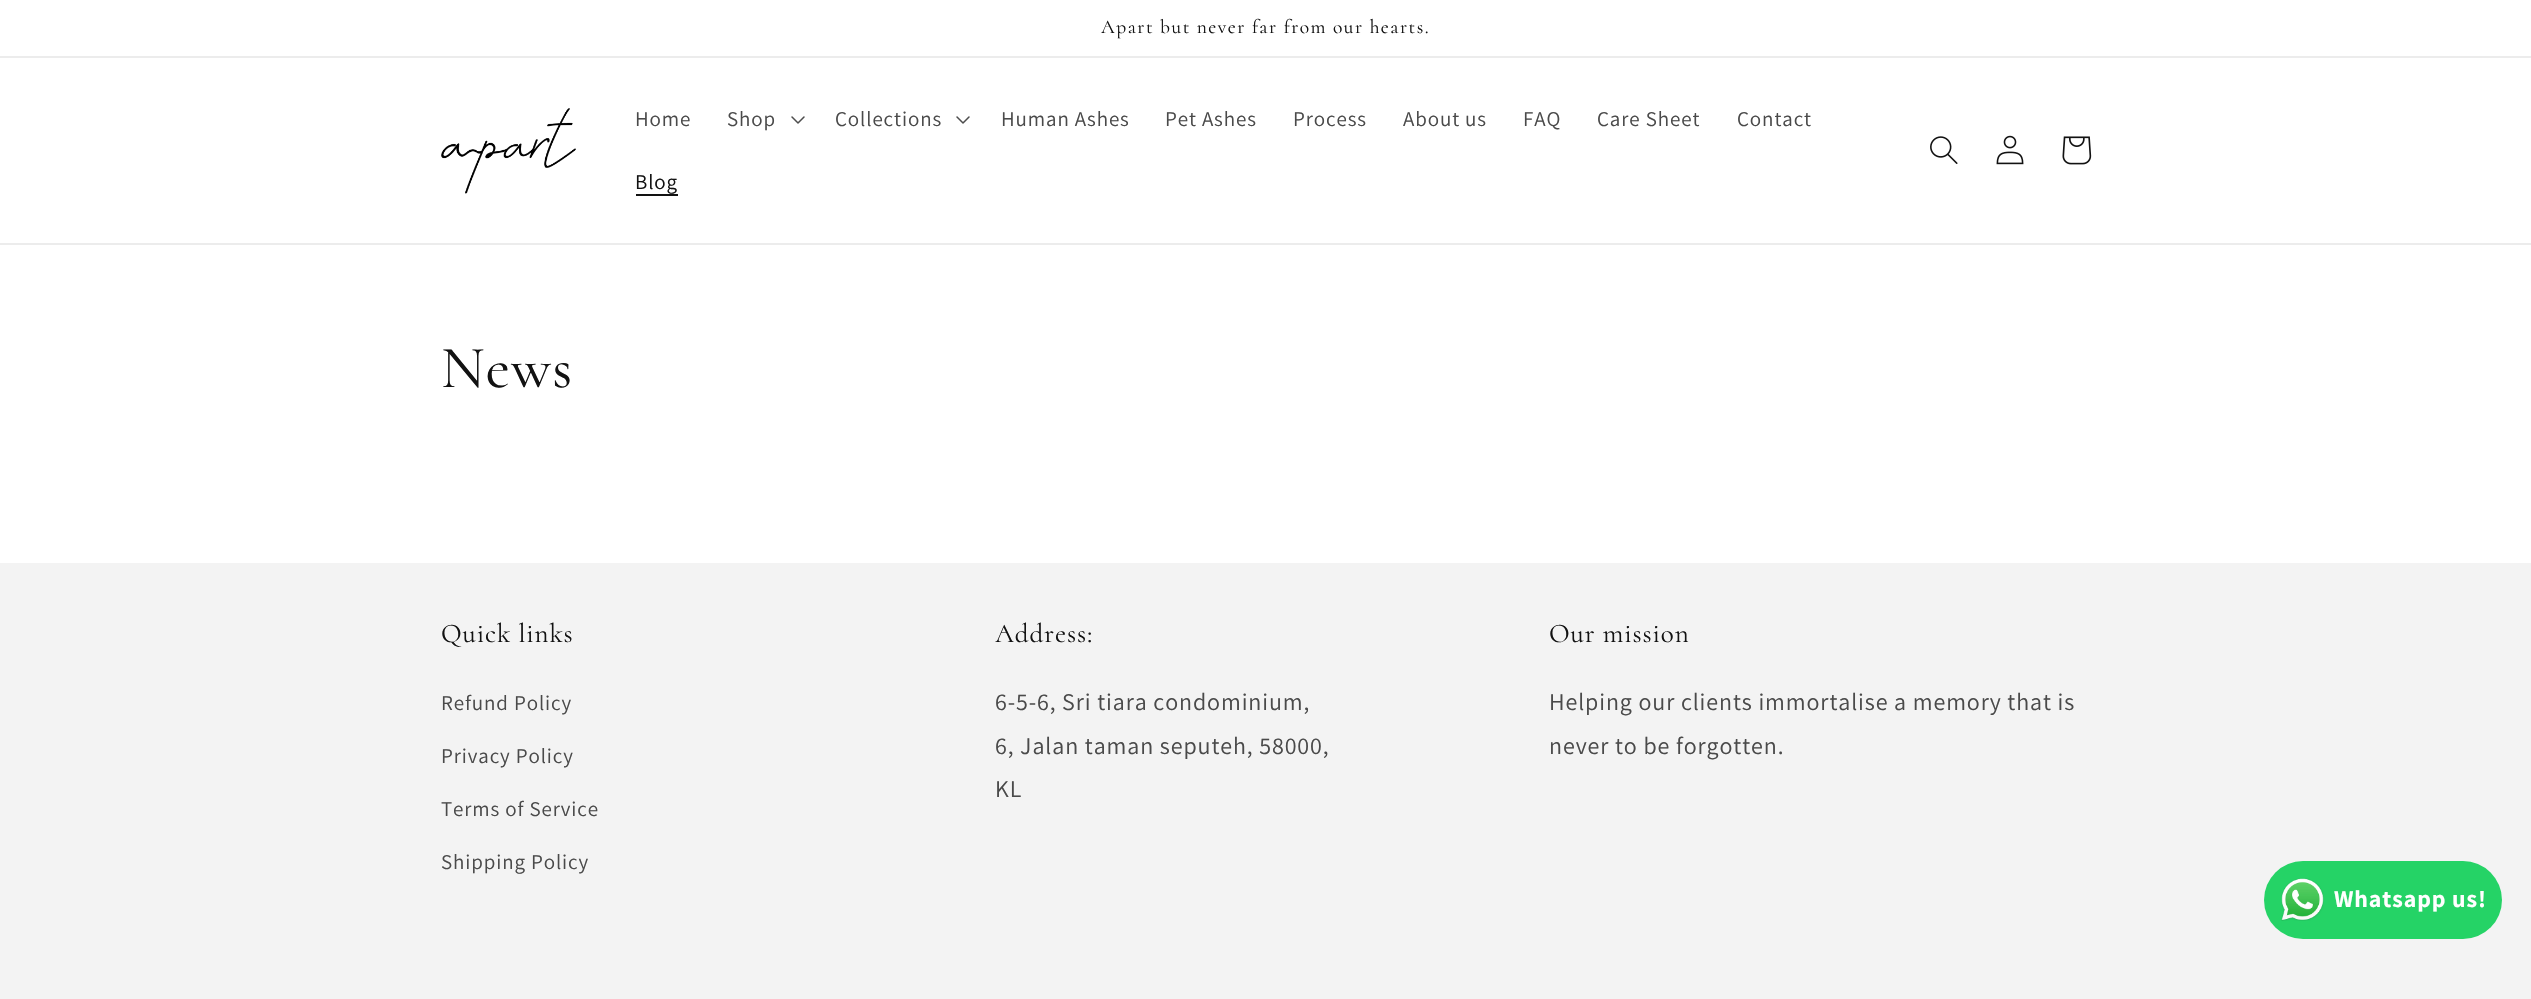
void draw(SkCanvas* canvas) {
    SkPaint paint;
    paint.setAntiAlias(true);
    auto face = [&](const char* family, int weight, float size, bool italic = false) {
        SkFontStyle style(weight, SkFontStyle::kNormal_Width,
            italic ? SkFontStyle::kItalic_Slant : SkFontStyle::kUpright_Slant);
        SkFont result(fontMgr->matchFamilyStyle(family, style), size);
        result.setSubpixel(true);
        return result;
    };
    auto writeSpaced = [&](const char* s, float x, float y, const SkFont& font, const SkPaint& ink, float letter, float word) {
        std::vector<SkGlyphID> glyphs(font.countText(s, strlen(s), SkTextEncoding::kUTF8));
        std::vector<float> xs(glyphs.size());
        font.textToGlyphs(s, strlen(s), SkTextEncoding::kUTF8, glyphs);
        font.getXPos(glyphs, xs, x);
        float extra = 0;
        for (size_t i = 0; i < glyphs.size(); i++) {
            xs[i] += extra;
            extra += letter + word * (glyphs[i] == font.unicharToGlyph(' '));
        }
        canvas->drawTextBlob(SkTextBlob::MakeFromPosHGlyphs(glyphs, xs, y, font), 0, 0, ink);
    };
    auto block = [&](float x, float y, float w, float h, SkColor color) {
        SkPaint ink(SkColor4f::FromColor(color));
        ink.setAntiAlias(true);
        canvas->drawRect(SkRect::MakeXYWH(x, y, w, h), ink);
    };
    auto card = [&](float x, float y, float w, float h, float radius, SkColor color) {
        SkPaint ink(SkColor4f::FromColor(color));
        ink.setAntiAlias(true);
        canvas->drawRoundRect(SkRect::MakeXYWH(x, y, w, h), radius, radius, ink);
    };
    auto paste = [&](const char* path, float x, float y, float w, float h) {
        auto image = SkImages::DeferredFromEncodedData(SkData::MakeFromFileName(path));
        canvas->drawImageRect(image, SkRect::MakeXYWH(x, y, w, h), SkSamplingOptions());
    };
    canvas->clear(SK_ColorWHITE);
    block(0, 56, 2531, 2, SkColorSetRGB(236, 236, 236));
    auto kFont1 = face("Cormorant", 400, 19.5f);
    paint.setColor(SkColorSetRGB(18, 18, 18));
    writeSpaced("Apart but never far from our hearts.", 1101, 33, kFont1, paint, 1.5f, 0);
    block(0, 243, 2531, 2, SkColorSetRGB(236, 236, 236));
    paste("pic1.png", 441, 108, 135, 86);
    auto kFont2 = face("Assistant", 400, 21);
    paint.setColor(SkColorSetRGB(74, 74, 74));
    writeSpaced("Home", 635, 126, kFont2, paint, 0.9f, 0);
    writeSpaced("Shop", 727, 126, kFont2, paint, 0.9f, 0);
    paste("pic2.png", 791, 116, 14, 8);
    writeSpaced("Collections", 835, 126, kFont2, paint, 0.9f, 0);
    paste("pic2.png", 956, 116, 14, 8);
    writeSpaced("Human Ashes", 1001, 126, kFont2, paint, 0.9f, 0);
    writeSpaced("Pet Ashes", 1165, 126, kFont2, paint, 0.9f, 0);
    writeSpaced("Process", 1293, 126, kFont2, paint, 0.9f, 0);
    writeSpaced("About us", 1403, 126, kFont2, paint, 0.9f, 0);
    writeSpaced("FAQ", 1523, 126, kFont2, paint, 0.9f, 0);
    writeSpaced("Care Sheet", 1597, 126, kFont2, paint, 0.9f, 0);
    writeSpaced("Contact", 1737, 126, kFont2, paint, 0.9f, 0);
    paint.setColor(SkColorSetRGB(18, 18, 18));
    writeSpaced("Blog", 635, 189, kFont2, paint, 0.9f, 0);
    block(636, 194, 42, 2, SkColorSetRGB(18, 18, 18));
    paste("pic3.png", 1930, 136, 28, 28);
    paste("pic4.png", 1996, 135, 28, 30);
    paste("pic5.png", 2062, 136, 30, 29);
    auto kFont3 = face("Cormorant", 400, 60);
    writeSpaced("News", 441, 387, kFont3, paint, 0.9f, 0);
    block(0, 563, 2531, 436, SkColorSetRGB(243, 243, 243));
    auto kFont4 = face("Cormorant", 400, 27);
    writeSpaced("Quick links", 441, 642, kFont4, paint, 0.9f, 0);
    paint.setColor(SkColorSetRGB(74, 74, 74));
    writeSpaced("Refund Policy", 441, 710, kFont2, paint, 0.9f, 0);
    writeSpaced("Privacy Policy", 441, 763, kFont2, paint, 0.9f, 0);
    writeSpaced("Terms of Service", 441, 816, kFont2, paint, 0.9f, 0);
    writeSpaced("Shipping Policy", 441, 869, kFont2, paint, 0.9f, 0);
    paint.setColor(SkColorSetRGB(18, 18, 18));
    writeSpaced("Address:", 995, 642, kFont4, paint, 0.9f, 0);
    auto kFont5 = face("Assistant", 400, 24);
    paint.setColor(SkColorSetRGB(74, 74, 74));
    writeSpaced("6-5-6, Sri tiara condominium,", 995, 710, kFont5, paint, 0.9f, 0);
    writeSpaced("6, Jalan taman seputeh, 58000,", 995, 754, kFont5, paint, 0.9f, 0);
    writeSpaced("KL", 995, 797, kFont5, paint, 0.9f, 0);
    paint.setColor(SkColorSetRGB(18, 18, 18));
    writeSpaced("Our mission", 1549, 642, kFont4, paint, 0.9f, 0);
    paint.setColor(SkColorSetRGB(74, 74, 74));
    writeSpaced("Helping our clients immortalise a memory that is", 1549, 710, kFont5, paint, 0.9f, 0);
    writeSpaced("never to be forgotten.", 1549, 754, kFont5, paint, 0.9f, 0);
    card(2264, 861, 238, 78, 39, SkColorSetRGB(37, 211, 102));
    paste("pic6.png", 2281, 878, 43, 43);
    auto kFont6 = face("Assistant", 700, 24);
    paint.setColor(SK_ColorWHITE);
    writeSpaced("Whatsapp us!", 2334, 907, kFont6, paint, 0.9f, 0);
}
